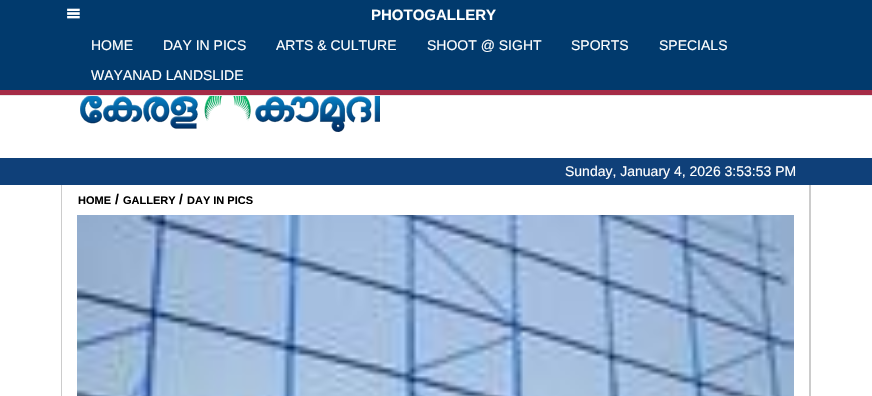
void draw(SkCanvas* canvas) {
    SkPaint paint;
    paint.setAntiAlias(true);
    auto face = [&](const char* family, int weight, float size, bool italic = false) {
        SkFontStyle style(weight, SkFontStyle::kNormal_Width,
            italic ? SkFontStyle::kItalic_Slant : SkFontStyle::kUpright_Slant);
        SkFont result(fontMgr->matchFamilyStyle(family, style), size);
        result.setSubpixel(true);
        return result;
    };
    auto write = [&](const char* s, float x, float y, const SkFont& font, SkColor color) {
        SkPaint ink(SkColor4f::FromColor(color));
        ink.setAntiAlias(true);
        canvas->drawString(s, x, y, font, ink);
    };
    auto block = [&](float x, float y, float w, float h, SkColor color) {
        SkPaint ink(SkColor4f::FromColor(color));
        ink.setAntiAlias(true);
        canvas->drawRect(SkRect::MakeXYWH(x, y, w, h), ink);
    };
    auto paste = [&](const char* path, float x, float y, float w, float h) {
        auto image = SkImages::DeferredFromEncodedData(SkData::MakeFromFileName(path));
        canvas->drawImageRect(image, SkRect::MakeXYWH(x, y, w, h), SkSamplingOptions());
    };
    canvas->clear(SK_ColorWHITE);
    block(0, 0, 872, 90, SkColorSetRGB(1, 58, 109));
    block(0, 95, 872, 1, SkColorSetRGB(231, 231, 231));
    paste("pic1.png", 67, 8, 13, 11);
    auto kFont1 = face("Liberation Sans", 700, 15);
    write("PHOTOGALLERY", 371, 20, kFont1, SK_ColorWHITE);
    auto kFont2 = face("Liberation Sans", 400, 14);
    write("HOME", 91, 50, kFont2, SK_ColorWHITE);
    write("DAY IN PICS", 163, 50, kFont2, SK_ColorWHITE);
    write("ARTS & CULTURE", 276, 50, kFont2, SK_ColorWHITE);
    write("SHOOT @ SIGHT", 427, 50, kFont2, SK_ColorWHITE);
    write("SPORTS", 571, 50, kFont2, SK_ColorWHITE);
    write("SPECIALS", 659, 50, kFont2, SK_ColorWHITE);
    write("WAYANAD LANDSLIDE", 91, 80, kFont2, SK_ColorWHITE);
    block(0, 90, 872, 5, SkColorSetRGB(165, 43, 70));
    paste("pic2.png", 80, 96, 300, 36);
    block(0, 158, 872, 27, SkColorSetRGB(15, 64, 121));
    write("Sunday, January 4, 2026 3:53:53 PM", 565, 176, kFont2, SK_ColorWHITE);
    block(809, 185, 2, 211, SkColorSetRGB(204, 204, 204));
    block(61, 185, 1, 211, SkColorSetRGB(204, 204, 204));
    auto kFont3 = face("Liberation Sans", 700, 11);
    write("HOME", 78, 204, kFont3, SK_ColorBLACK);
    auto kFont4 = face("Liberation Sans", 700, 14);
    write("/", 115, 204, kFont4, SK_ColorBLACK);
    write("GALLERY", 123, 204, kFont3, SK_ColorBLACK);
    write("/", 179, 204, kFont4, SK_ColorBLACK);
    write("DAY IN PICS", 187, 204, kFont3, SK_ColorBLACK);
    paste("pic3.png", 77, 215, 717, 181);
}
